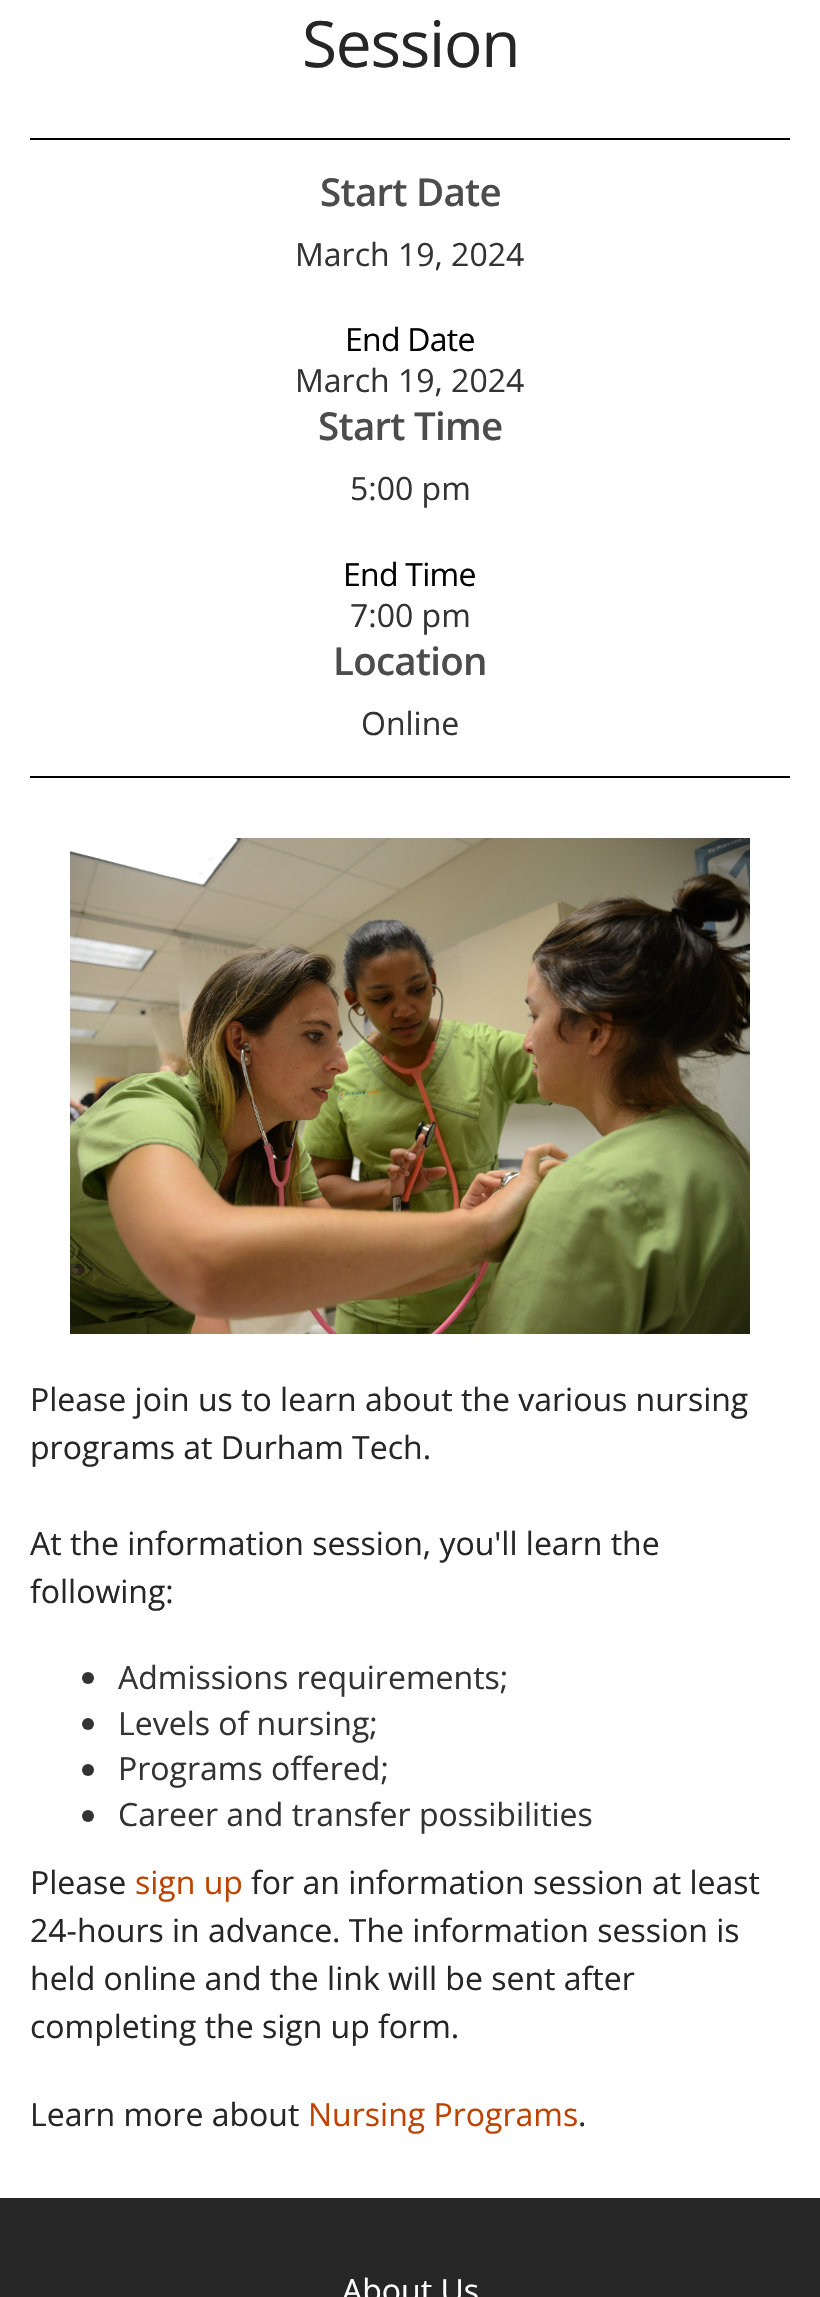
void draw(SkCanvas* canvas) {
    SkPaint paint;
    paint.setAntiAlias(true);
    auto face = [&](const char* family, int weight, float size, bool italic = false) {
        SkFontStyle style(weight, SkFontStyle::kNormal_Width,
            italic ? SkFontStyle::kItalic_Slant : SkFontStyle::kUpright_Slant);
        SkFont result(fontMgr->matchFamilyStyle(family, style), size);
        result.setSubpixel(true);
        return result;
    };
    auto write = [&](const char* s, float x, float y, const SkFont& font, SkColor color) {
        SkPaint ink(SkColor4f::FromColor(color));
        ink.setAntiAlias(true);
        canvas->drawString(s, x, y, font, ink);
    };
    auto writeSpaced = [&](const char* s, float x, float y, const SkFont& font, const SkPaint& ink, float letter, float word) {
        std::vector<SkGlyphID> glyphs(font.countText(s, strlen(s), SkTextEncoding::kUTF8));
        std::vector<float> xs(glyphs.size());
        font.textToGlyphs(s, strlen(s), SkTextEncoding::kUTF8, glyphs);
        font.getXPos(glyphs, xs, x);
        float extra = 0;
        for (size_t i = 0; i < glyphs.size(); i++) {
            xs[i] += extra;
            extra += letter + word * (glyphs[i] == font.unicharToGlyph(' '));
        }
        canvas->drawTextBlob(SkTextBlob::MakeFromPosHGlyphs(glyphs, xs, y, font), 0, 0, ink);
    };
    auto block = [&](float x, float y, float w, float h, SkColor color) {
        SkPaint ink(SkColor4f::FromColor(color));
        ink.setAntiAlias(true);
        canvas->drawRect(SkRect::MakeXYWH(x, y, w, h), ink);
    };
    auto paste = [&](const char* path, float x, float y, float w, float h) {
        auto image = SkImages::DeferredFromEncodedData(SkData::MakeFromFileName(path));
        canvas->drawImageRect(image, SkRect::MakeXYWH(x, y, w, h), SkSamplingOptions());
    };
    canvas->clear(SK_ColorWHITE);
    auto kFont1 = face("Open Sans", 400, 64);
    paint.setColor(SkColorSetRGB(38, 38, 38));
    writeSpaced("Session", 302, 67, kFont1, paint, -1.25f, 0);
    block(30, 138, 760, 2, SK_ColorBLACK);
    block(30, 776, 760, 2, SK_ColorBLACK);
    auto kFont2 = face("Open Sans", 600, 38.5f);
    paint.setColor(SkColorSetRGB(76, 76, 76));
    writeSpaced("Start Date", 320, 206, kFont2, paint, -0.75f, 0);
    auto kFont3 = face("Open Sans", 400, 32);
    write("March 19, 2024", 295, 266, kFont3, SkColorSetRGB(51, 51, 51));
    paint.setColor(SK_ColorBLACK);
    writeSpaced("End Date", 345, 351, kFont3, paint, -0.75f, 0);
    write("March 19, 2024", 295, 392, kFont3, SkColorSetRGB(51, 51, 51));
    paint.setColor(SkColorSetRGB(76, 76, 76));
    writeSpaced("Start Time", 318, 440, kFont2, paint, -0.75f, 0);
    write("5:00 pm", 350, 500, kFont3, SkColorSetRGB(51, 51, 51));
    paint.setColor(SK_ColorBLACK);
    writeSpaced("End Time", 343, 586, kFont3, paint, -0.75f, 0);
    write("7:00 pm", 350, 627, kFont3, SkColorSetRGB(51, 51, 51));
    paint.setColor(SkColorSetRGB(76, 76, 76));
    writeSpaced("Location", 333, 675, kFont2, paint, -0.75f, 0);
    write("Online", 361, 735, kFont3, SkColorSetRGB(51, 51, 51));
    paste("pic1.png", 70, 838, 680, 496);
    write("Please join us to learn about the various nursing", 30, 1411, kFont3, SkColorSetRGB(38, 38, 38));
    write("programs at Durham Tech.", 30, 1459, kFont3, SkColorSetRGB(38, 38, 38));
    write("At the information session, you'll learn the", 30, 1555, kFont3, SkColorSetRGB(38, 38, 38));
    write("following:", 30, 1603, kFont3, SkColorSetRGB(38, 38, 38));
    paint.setColor(SkColorSetRGB(51, 51, 51));
    canvas->drawCircle(88, 1678, 6, paint);
    write("Admissions requirements;", 118, 1689, kFont3, SkColorSetRGB(51, 51, 51));
    canvas->drawCircle(88, 1724, 6, paint);
    write("Levels of nursing;", 118, 1735, kFont3, SkColorSetRGB(51, 51, 51));
    canvas->drawCircle(88, 1770, 6, paint);
    write("Programs offered;", 118, 1780, kFont3, SkColorSetRGB(51, 51, 51));
    canvas->drawCircle(88, 1816, 6, paint);
    write("Career and transfer possibilities", 118, 1826, kFont3, SkColorSetRGB(51, 51, 51));
    write("Please", 30, 1894, kFont3, SkColorSetRGB(38, 38, 38));
    write("sign up", 135, 1894, kFont3, SkColorSetRGB(190, 67, 1));
    write("for an information session at least", 251, 1894, kFont3, SkColorSetRGB(38, 38, 38));
    write("24-hours in advance. The information session is", 30, 1942, kFont3, SkColorSetRGB(38, 38, 38));
    write("held online and the link will be sent after", 30, 1990, kFont3, SkColorSetRGB(38, 38, 38));
    write("completing the sign up form.", 30, 2038, kFont3, SkColorSetRGB(38, 38, 38));
    write("Learn more about", 30, 2126, kFont3, SkColorSetRGB(38, 38, 38));
    write("Nursing Programs", 308, 2126, kFont3, SkColorSetRGB(190, 67, 1));
    write(".", 578, 2126, kFont3, SkColorSetRGB(38, 38, 38));
    block(0, 2198, 820, 99, SkColorSetRGB(38, 38, 38));
    write("About Us", 342, 2302, kFont3, SK_ColorWHITE);
}
